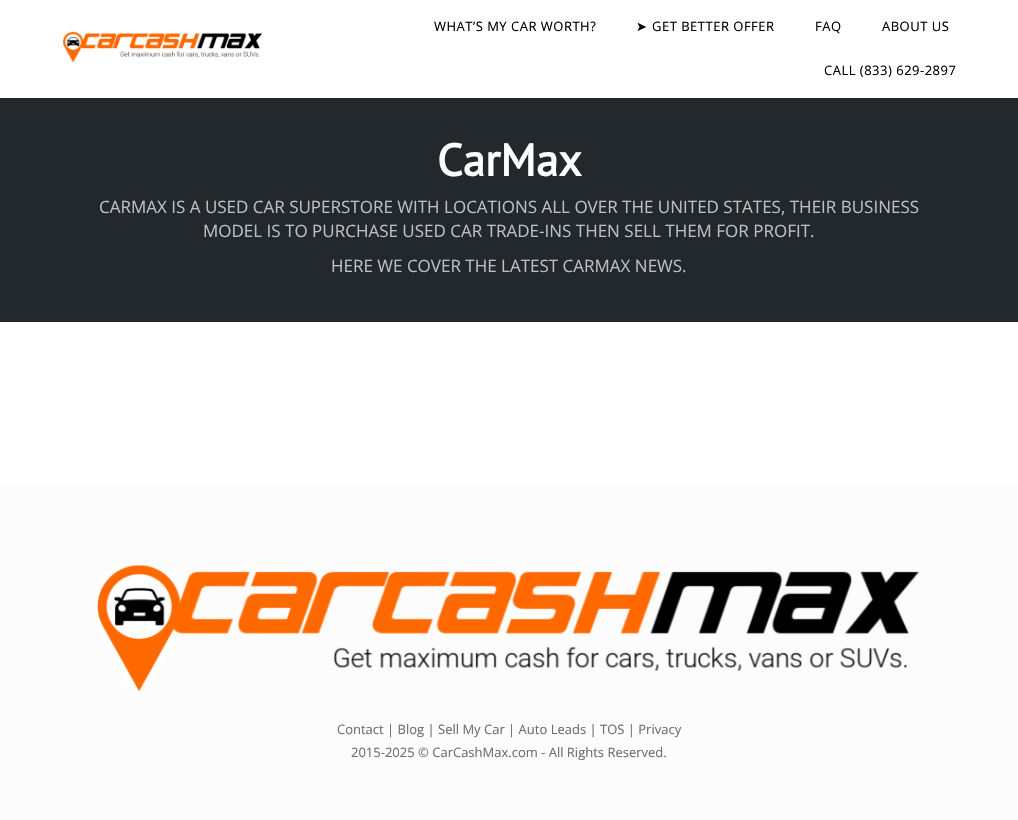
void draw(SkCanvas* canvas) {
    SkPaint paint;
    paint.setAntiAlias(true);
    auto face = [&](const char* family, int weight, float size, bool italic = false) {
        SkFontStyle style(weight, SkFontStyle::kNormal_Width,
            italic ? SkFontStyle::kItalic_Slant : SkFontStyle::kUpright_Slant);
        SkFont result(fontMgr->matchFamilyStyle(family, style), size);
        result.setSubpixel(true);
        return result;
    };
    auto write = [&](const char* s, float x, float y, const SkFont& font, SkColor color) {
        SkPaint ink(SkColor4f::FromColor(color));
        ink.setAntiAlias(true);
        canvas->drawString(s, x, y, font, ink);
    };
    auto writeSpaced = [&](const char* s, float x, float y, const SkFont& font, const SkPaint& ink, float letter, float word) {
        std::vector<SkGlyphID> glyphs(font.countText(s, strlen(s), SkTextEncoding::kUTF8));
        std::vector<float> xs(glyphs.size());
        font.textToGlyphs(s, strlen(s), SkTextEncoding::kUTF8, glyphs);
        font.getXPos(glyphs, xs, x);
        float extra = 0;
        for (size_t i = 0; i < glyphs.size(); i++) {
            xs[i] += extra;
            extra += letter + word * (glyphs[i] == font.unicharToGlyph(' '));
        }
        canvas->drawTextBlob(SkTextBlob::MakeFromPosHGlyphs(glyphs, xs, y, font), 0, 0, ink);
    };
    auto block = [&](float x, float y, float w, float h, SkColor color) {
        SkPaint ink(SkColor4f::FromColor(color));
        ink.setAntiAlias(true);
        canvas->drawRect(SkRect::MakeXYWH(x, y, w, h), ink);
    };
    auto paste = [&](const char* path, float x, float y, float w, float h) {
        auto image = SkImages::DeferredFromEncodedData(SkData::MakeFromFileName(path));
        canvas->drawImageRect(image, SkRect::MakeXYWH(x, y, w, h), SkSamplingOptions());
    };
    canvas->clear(SK_ColorWHITE);
    paste("pic1.png", 63, 31, 200, 32);
    auto kFont1 = face("Open Sans", 400, 13);
    paint.setColor(SK_ColorBLACK);
    writeSpaced("WHAT’S MY CAR WORTH?", 434, 31, kFont1, paint, 0.5f, 0);
    auto kFont2 = face("DejaVu Sans", 400, 13);
    writeSpaced("➤", 636, 31, kFont2, paint, 0.5f, 0);
    writeSpaced("GET BETTER OFFER", 652, 31, kFont1, paint, 0.5f, 0);
    writeSpaced("FAQ", 815, 31, kFont1, paint, 0.5f, 0);
    writeSpaced("ABOUT US", 882, 31, kFont1, paint, 0.5f, 0);
    writeSpaced("CALL (833) 629-2897", 824, 75, kFont1, paint, 0.5f, 0);
    block(0, 98, 1018, 224, SkColorSetRGB(35, 40, 45));
    auto kFont3 = face("PT Sans", 700, 45);
    write("CarMax", 437, 176, kFont3, SK_ColorWHITE);
    auto kFont4 = face("Open Sans", 400, 17);
    write("CARMAX IS A USED CAR SUPERSTORE WITH LOCATIONS ALL OVER THE UNITED STATES, THEIR BUSINESS", 99, 213, kFont4, SkColorSetRGB(189, 191, 192));
    write("MODEL IS TO PURCHASE USED CAR TRADE-INS THEN SELL THEM FOR PROFIT.", 203, 237, kFont4, SkColorSetRGB(189, 191, 192));
    write("HERE WE COVER THE LATEST CARMAX NEWS.", 331, 272, kFont4, SkColorSetRGB(189, 191, 192));
    block(0, 483, 1018, 337, SkColorSetRGB(252, 252, 252));
    paste("pic2.png", 97, 564, 823, 128);
    write("Contact | Blog | Sell My Car | Auto Leads | TOS | Privacy", 337, 734, kFont1, SkColorSetRGB(109, 109, 109));
    write("2015-2025 © CarCashMax.com - All Rights Reserved.", 351, 757, kFont1, SkColorSetRGB(109, 109, 109));
}
